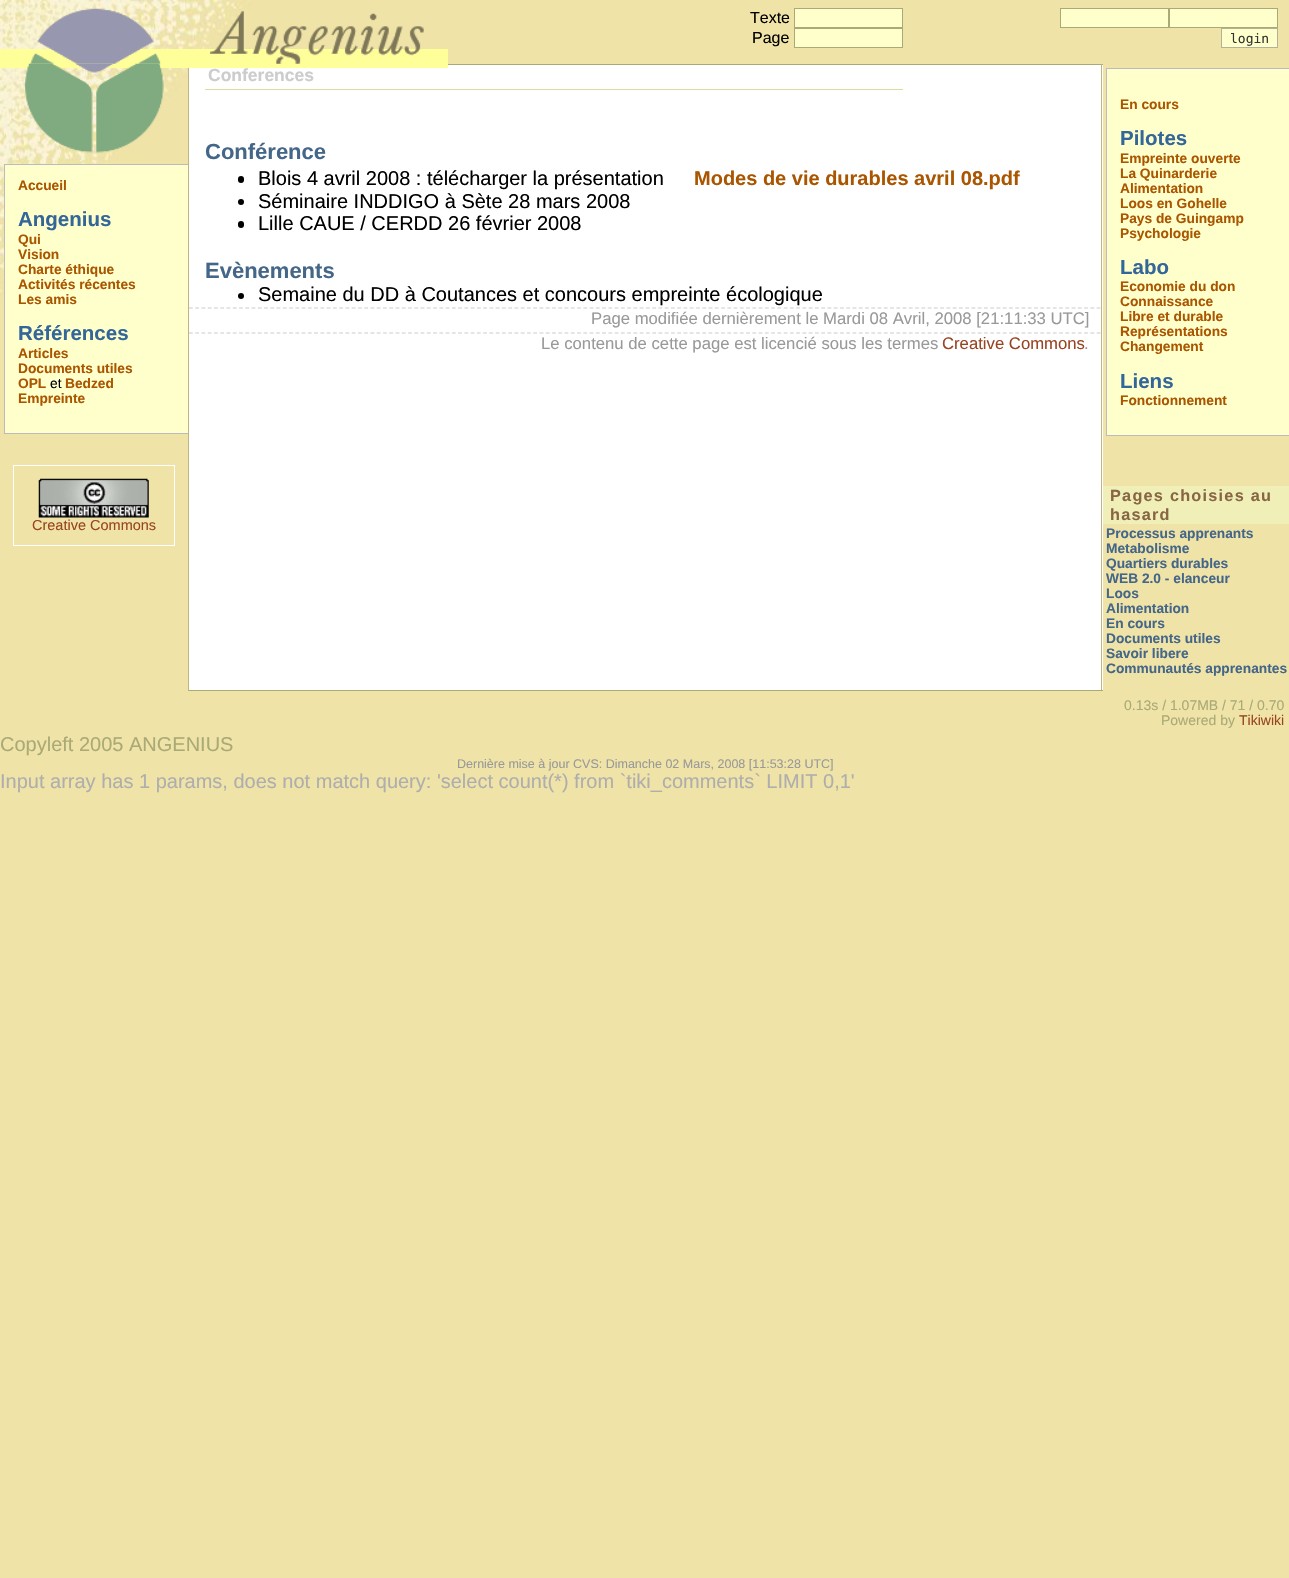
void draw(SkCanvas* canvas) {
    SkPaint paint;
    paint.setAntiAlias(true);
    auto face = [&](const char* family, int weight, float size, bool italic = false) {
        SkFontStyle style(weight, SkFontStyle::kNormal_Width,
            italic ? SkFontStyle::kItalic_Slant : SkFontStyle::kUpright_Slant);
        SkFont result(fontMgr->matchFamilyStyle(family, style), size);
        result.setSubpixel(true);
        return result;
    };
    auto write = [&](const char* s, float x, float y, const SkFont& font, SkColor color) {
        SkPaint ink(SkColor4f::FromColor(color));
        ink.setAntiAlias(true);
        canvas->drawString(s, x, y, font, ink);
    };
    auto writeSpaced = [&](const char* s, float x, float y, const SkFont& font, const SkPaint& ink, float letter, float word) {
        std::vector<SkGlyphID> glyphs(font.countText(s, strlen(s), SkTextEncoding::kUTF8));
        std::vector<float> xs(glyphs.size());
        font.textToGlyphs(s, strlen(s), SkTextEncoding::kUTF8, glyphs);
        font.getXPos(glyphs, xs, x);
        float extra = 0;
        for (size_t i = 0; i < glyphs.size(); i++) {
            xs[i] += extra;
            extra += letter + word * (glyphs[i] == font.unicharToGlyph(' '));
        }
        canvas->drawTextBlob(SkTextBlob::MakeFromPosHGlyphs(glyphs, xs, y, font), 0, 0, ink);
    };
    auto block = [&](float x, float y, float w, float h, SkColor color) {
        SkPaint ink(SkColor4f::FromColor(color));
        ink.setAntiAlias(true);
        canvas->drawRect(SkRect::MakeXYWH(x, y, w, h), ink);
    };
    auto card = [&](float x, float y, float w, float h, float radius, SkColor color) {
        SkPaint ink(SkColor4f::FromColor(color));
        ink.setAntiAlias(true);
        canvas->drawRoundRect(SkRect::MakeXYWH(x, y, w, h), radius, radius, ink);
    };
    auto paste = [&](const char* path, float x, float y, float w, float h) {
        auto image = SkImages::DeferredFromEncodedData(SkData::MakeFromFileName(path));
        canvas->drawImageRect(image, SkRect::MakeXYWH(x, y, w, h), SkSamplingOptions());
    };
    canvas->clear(SkColorSetRGB(239, 227, 167));
    paste("pic1.png", 0, 0, 322, 372);
    block(5, 165, 183, 268, SkColorSetRGB(255, 255, 204));
    paint.setStyle(SkPaint::kStroke_Style);
    paint.setStrokeWidth(1);
    paint.setColor(SkColorSetRGB(187, 187, 187));
    canvas->drawRect(SkRect::MakeXYWH(4.5f, 164.5f, 186, 269), paint);
    block(189, 65, 914, 625, SK_ColorWHITE);
    block(448, 64, 655, 1, SkColorSetRGB(170, 170, 119));
    block(1101, 64, 1, 627, SkColorSetRGB(191, 179, 135));
    block(188, 690, 915, 1, SkColorSetRGB(170, 170, 119));
    block(188, 64, 1, 627, SkColorSetRGB(191, 179, 135));
    block(0, 49, 448, 19, SkColorSetRGB(255, 255, 153));
    paste("pic2.png", 30, 8, 394, 56);
    auto kFont1 = face("Liberation Sans", 400, 16);
    write("Texte", 750, 23, kFont1, SK_ColorBLACK);
    paint.setStyle(SkPaint::kFill_Style);
    paint.setColor(SkColorSetRGB(255, 255, 204));
    canvas->drawRect(SkRect::MakeXYWH(794.5f, 8.5f, 108, 19), paint);
    paint.setStyle(SkPaint::kStroke_Style);
    paint.setColor(SkColorSetRGB(170, 170, 119));
    canvas->drawRect(SkRect::MakeXYWH(794.5f, 8.5f, 108, 19), paint);
    write("Page", 752, 43, kFont1, SK_ColorBLACK);
    paint.setStyle(SkPaint::kFill_Style);
    paint.setColor(SkColorSetRGB(255, 255, 204));
    canvas->drawRect(SkRect::MakeXYWH(794.5f, 28.5f, 108, 19), paint);
    paint.setStyle(SkPaint::kStroke_Style);
    paint.setColor(SkColorSetRGB(170, 170, 119));
    canvas->drawRect(SkRect::MakeXYWH(794.5f, 28.5f, 108, 19), paint);
    paint.setStyle(SkPaint::kFill_Style);
    paint.setColor(SkColorSetRGB(255, 255, 204));
    canvas->drawRect(SkRect::MakeXYWH(1060.5f, 8.5f, 108, 19), paint);
    paint.setStyle(SkPaint::kStroke_Style);
    paint.setColor(SkColorSetRGB(170, 170, 119));
    canvas->drawRect(SkRect::MakeXYWH(1060.5f, 8.5f, 108, 19), paint);
    paint.setStyle(SkPaint::kFill_Style);
    paint.setColor(SkColorSetRGB(255, 255, 204));
    canvas->drawRect(SkRect::MakeXYWH(1169.5f, 8.5f, 108, 19), paint);
    paint.setStyle(SkPaint::kStroke_Style);
    paint.setColor(SkColorSetRGB(170, 170, 119));
    canvas->drawRect(SkRect::MakeXYWH(1169.5f, 8.5f, 108, 19), paint);
    paint.setStyle(SkPaint::kFill_Style);
    paint.setColor(SkColorSetRGB(255, 255, 204));
    canvas->drawRect(SkRect::MakeXYWH(1221.5f, 28.5f, 56, 19), paint);
    paint.setStyle(SkPaint::kStroke_Style);
    paint.setColor(SkColorSetRGB(177, 178, 153));
    canvas->drawRect(SkRect::MakeXYWH(1221.5f, 28.5f, 56, 19), paint);
    auto kFont2 = face("DejaVu Sans Mono", 400, 13);
    write("login", 1230, 43, kFont2, SkColorSetRGB(51, 51, 51));
    paste("pic3.png", 24, 63, 140, 90);
    auto kFont3 = face("Liberation Sans", 700, 13.75f);
    write("Accueil", 18, 190, kFont3, SkColorSetRGB(170, 85, 0));
    auto kFont4 = face("Liberation Sans", 700, 20.5f);
    write("Angenius", 18, 226, kFont4, SkColorSetRGB(51, 102, 153));
    write("Qui", 18, 244, kFont3, SkColorSetRGB(170, 85, 0));
    write("Vision", 18, 259, kFont3, SkColorSetRGB(170, 85, 0));
    write("Charte éthique", 18, 274, kFont3, SkColorSetRGB(170, 85, 0));
    write("Activités récentes", 18, 289, kFont3, SkColorSetRGB(170, 85, 0));
    write("Les amis", 18, 304, kFont3, SkColorSetRGB(170, 85, 0));
    write("Références", 18, 340, kFont4, SkColorSetRGB(51, 102, 153));
    write("Articles", 18, 358, kFont3, SkColorSetRGB(170, 85, 0));
    write("Documents utiles", 18, 373, kFont3, SkColorSetRGB(170, 85, 0));
    write("OPL", 18, 388, kFont3, SkColorSetRGB(170, 85, 0));
    auto kFont5 = face("Liberation Sans", 400, 13.75f);
    write("et", 50, 388, kFont5, SK_ColorBLACK);
    write("Bedzed", 65, 388, kFont3, SkColorSetRGB(170, 85, 0));
    write("Empreinte", 18, 403, kFont3, SkColorSetRGB(170, 85, 0));
    paint.setColor(SK_ColorWHITE);
    canvas->drawRect(SkRect::MakeXYWH(13.5f, 465.5f, 161, 80), paint);
    paste("pic4.png", 38, 478, 111, 40);
    auto kFont6 = face("Liberation Sans", 400, 14.5f);
    write("Creative Commons", 32, 530, kFont6, SkColorSetRGB(153, 68, 34));
    auto kFont7 = face("Liberation Sans", 700, 17.5f);
    write("Conferences", 208, 81, kFont7, SkColorSetRGB(204, 204, 204));
    block(205, 89, 698, 1, SkColorSetRGB(221, 221, 153));
    auto kFont8 = face("Liberation Sans", 700, 22);
    write("Conférence", 205, 159, kFont8, SkColorSetRGB(68, 102, 136));
    card(238, 176, 6, 7, 3, SK_ColorBLACK);
    auto kFont9 = face("Liberation Sans", 400, 20);
    write("Blois 4 avril 2008 : télécharger la présentation", 258, 185, kFont9, SK_ColorBLACK);
    auto kFont10 = face("Liberation Sans", 700, 20);
    write("Modes de vie durables avril 08.pdf", 694, 185, kFont10, SkColorSetRGB(170, 85, 0));
    paint.setStyle(SkPaint::kFill_Style);
    paint.setColor(SK_ColorBLACK);
    canvas->drawCircle(241, 202, 3, paint);
    write("Séminaire INDDIGO à Sète 28 mars 2008", 258, 208, kFont9, SK_ColorBLACK);
    card(238, 221, 6, 7, 3, SK_ColorBLACK);
    write("Lille CAUE / CERDD 26 février 2008", 258, 230, kFont9, SK_ColorBLACK);
    write("Evènements", 205, 278, kFont8, SkColorSetRGB(68, 102, 136));
    canvas->drawCircle(241, 296, 3, paint);
    write("Semaine du DD à Coutances et concours empreinte écologique", 258, 301, kFont9, SK_ColorBLACK);
    paint.setStyle(SkPaint::kStroke_Style);
    paint.setStrokeWidth(1.2f);
    paint.setColor(SkColorSetRGB(204, 204, 204));
    paint.setPathEffect(SkDashPathEffect::Make({{3.75f, 2.51f}}, 0));
    canvas->drawPath(SkPathBuilder().moveTo(189, 308).lineTo(1101, 308).detach(), paint);
    paint.setPathEffect(nullptr);
    auto kFont11 = face("Liberation Sans", 400, 16.7f);
    write("Page modifiée dernièrement le Mardi 08 Avril, 2008 [21:11:33 UTC]", 591, 324, kFont11, SkColorSetRGB(153, 153, 153));
    paint.setPathEffect(SkDashPathEffect::Make({{3.75f, 2.51f}}, 0));
    canvas->drawPath(SkPathBuilder().moveTo(189, 333).lineTo(1101, 333).detach(), paint);
    paint.setPathEffect(nullptr);
    write("Le contenu de cette page est licencié sous les termes", 541, 349, kFont11, SkColorSetRGB(153, 153, 153));
    write("Creative Commons", 942, 349, kFont11, SkColorSetRGB(153, 68, 34));
    write(".", 1084, 349, kFont11, SkColorSetRGB(153, 153, 153));
    paint.setStyle(SkPaint::kFill_Style);
    paint.setColor(SkColorSetRGB(255, 255, 204));
    canvas->drawRect(SkRect::MakeXYWH(1106.5f, 68.5f, 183, 367), paint);
    paint.setStyle(SkPaint::kStroke_Style);
    paint.setStrokeWidth(1);
    paint.setColor(SkColorSetRGB(187, 187, 187));
    canvas->drawRect(SkRect::MakeXYWH(1106.5f, 68.5f, 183, 367), paint);
    write("En cours", 1120, 109, kFont3, SkColorSetRGB(170, 85, 0));
    write("Pilotes", 1120, 145, kFont4, SkColorSetRGB(51, 102, 153));
    write("Empreinte ouverte", 1120, 163, kFont3, SkColorSetRGB(170, 85, 0));
    write("La Quinarderie", 1120, 178, kFont3, SkColorSetRGB(170, 85, 0));
    write("Alimentation", 1120, 193, kFont3, SkColorSetRGB(170, 85, 0));
    write("Loos en Gohelle", 1120, 208, kFont3, SkColorSetRGB(170, 85, 0));
    write("Pays de Guingamp", 1120, 223, kFont3, SkColorSetRGB(170, 85, 0));
    write("Psychologie", 1120, 238, kFont3, SkColorSetRGB(170, 85, 0));
    write("Labo", 1120, 274, kFont4, SkColorSetRGB(51, 102, 153));
    write("Economie du don", 1120, 291, kFont3, SkColorSetRGB(170, 85, 0));
    write("Connaissance", 1120, 306, kFont3, SkColorSetRGB(170, 85, 0));
    write("Libre et durable", 1120, 321, kFont3, SkColorSetRGB(170, 85, 0));
    write("Représentations", 1120, 336, kFont3, SkColorSetRGB(170, 85, 0));
    write("Changement", 1120, 351, kFont3, SkColorSetRGB(170, 85, 0));
    write("Liens", 1120, 388, kFont4, SkColorSetRGB(51, 102, 153));
    write("Fonctionnement", 1120, 405, kFont3, SkColorSetRGB(170, 85, 0));
    block(1103, 486, 186, 38, SkColorSetRGB(239, 239, 183));
    auto kFont12 = face("Liberation Sans", 700, 16.25f);
    paint.setStyle(SkPaint::kFill_Style);
    paint.setColor(SkColorSetRGB(136, 102, 68));
    writeSpaced("Pages choisies au", 1110, 501, kFont12, paint, 1.25f, 0);
    writeSpaced("hasard", 1110, 520, kFont12, paint, 1.25f, 0);
    write("Processus apprenants", 1106, 538, kFont3, SkColorSetRGB(68, 102, 136));
    write("Metabolisme", 1106, 553, kFont3, SkColorSetRGB(68, 102, 136));
    write("Quartiers durables", 1106, 568, kFont3, SkColorSetRGB(68, 102, 136));
    write("WEB 2.0 - elanceur", 1106, 583, kFont3, SkColorSetRGB(68, 102, 136));
    write("Loos", 1106, 598, kFont3, SkColorSetRGB(68, 102, 136));
    write("Alimentation", 1106, 613, kFont3, SkColorSetRGB(68, 102, 136));
    write("En cours", 1106, 628, kFont3, SkColorSetRGB(68, 102, 136));
    write("Documents utiles", 1106, 643, kFont3, SkColorSetRGB(68, 102, 136));
    write("Savoir libere", 1106, 658, kFont3, SkColorSetRGB(68, 102, 136));
    write("Communautés apprenantes", 1106, 673, kFont3, SkColorSetRGB(68, 102, 136));
    auto kFont13 = face("Liberation Sans", 400, 14);
    write("0.13s / 1.07MB / 71 / 0.70", 1124, 710, kFont13, SkColorSetRGB(170, 170, 119));
    write("Powered by", 1161, 725, kFont13, SkColorSetRGB(170, 170, 119));
    write("Tikiwiki", 1239, 725, kFont13, SkColorSetRGB(153, 68, 34));
    write("Copyleft 2005 ANGENIUS", 0, 751, kFont9, SkColorSetRGB(170, 170, 119));
    auto kFont14 = face("Liberation Sans", 400, 12.5f);
    write("Dernière mise à jour CVS: Dimanche 02 Mars, 2008 [11:53:28 UTC]", 457, 768, kFont14, SkColorSetRGB(153, 153, 153));
    write("Input array has 1 params, does not match query: 'select count(*) from `tiki_comments` LIMIT 0,1'", 0, 788, kFont9, SkColorSetRGB(174, 174, 174));
}
